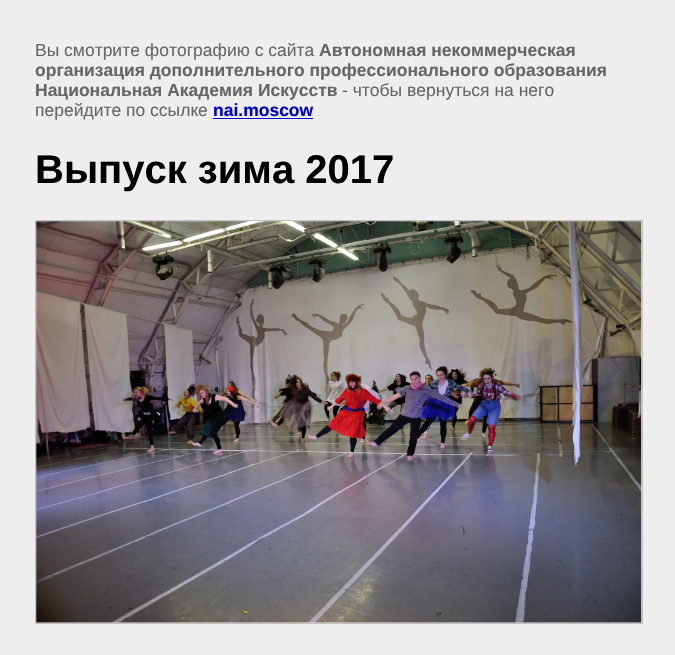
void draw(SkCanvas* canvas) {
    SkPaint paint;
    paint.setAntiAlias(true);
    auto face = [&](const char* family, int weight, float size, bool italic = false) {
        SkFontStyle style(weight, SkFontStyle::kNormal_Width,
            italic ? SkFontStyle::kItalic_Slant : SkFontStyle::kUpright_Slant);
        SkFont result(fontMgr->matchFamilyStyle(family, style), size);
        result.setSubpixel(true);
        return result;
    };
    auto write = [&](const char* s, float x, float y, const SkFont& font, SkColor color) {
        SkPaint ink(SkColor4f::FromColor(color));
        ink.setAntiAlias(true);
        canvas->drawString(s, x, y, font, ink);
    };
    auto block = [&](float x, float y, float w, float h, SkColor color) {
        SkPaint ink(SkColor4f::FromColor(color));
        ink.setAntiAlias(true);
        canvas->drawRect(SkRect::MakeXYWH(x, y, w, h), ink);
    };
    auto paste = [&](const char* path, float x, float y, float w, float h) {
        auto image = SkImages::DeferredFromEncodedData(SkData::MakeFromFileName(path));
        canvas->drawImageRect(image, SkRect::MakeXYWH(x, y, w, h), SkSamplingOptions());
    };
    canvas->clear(SkColorSetRGB(238, 238, 238));
    auto kFont1 = face("Liberation Sans", 400, 17.5f);
    write("Вы смотрите фотографию с сайта", 35, 56, kFont1, SkColorSetRGB(102, 102, 102));
    auto kFont2 = face("Liberation Sans", 700, 17.5f);
    write("Автономная некоммерческая", 319, 56, kFont2, SkColorSetRGB(102, 102, 102));
    write("организация дополнительного профессионального образования", 35, 76, kFont2, SkColorSetRGB(102, 102, 102));
    write("Национальная Академия Искусств", 35, 96, kFont2, SkColorSetRGB(102, 102, 102));
    write("- чтобы вернуться на него", 342, 96, kFont1, SkColorSetRGB(102, 102, 102));
    write("перейдите по ссылке", 35, 116, kFont1, SkColorSetRGB(102, 102, 102));
    write("nai.moscow", 213, 116, kFont2, SkColorSetRGB(0, 0, 204));
    block(213, 118, 100, 1, SkColorSetRGB(0, 0, 204));
    auto kFont3 = face("Liberation Sans", 700, 40);
    write("Выпуск зима 2017", 35, 183, kFont3, SK_ColorBLACK);
    paint.setStyle(SkPaint::kStroke_Style);
    paint.setStrokeWidth(1);
    paint.setColor(SkColorSetRGB(192, 192, 192));
    canvas->drawRect(SkRect::MakeXYWH(35.5f, 220.5f, 607, 403), paint);
    paste("pic1.png", 36, 221, 606, 402);
}
